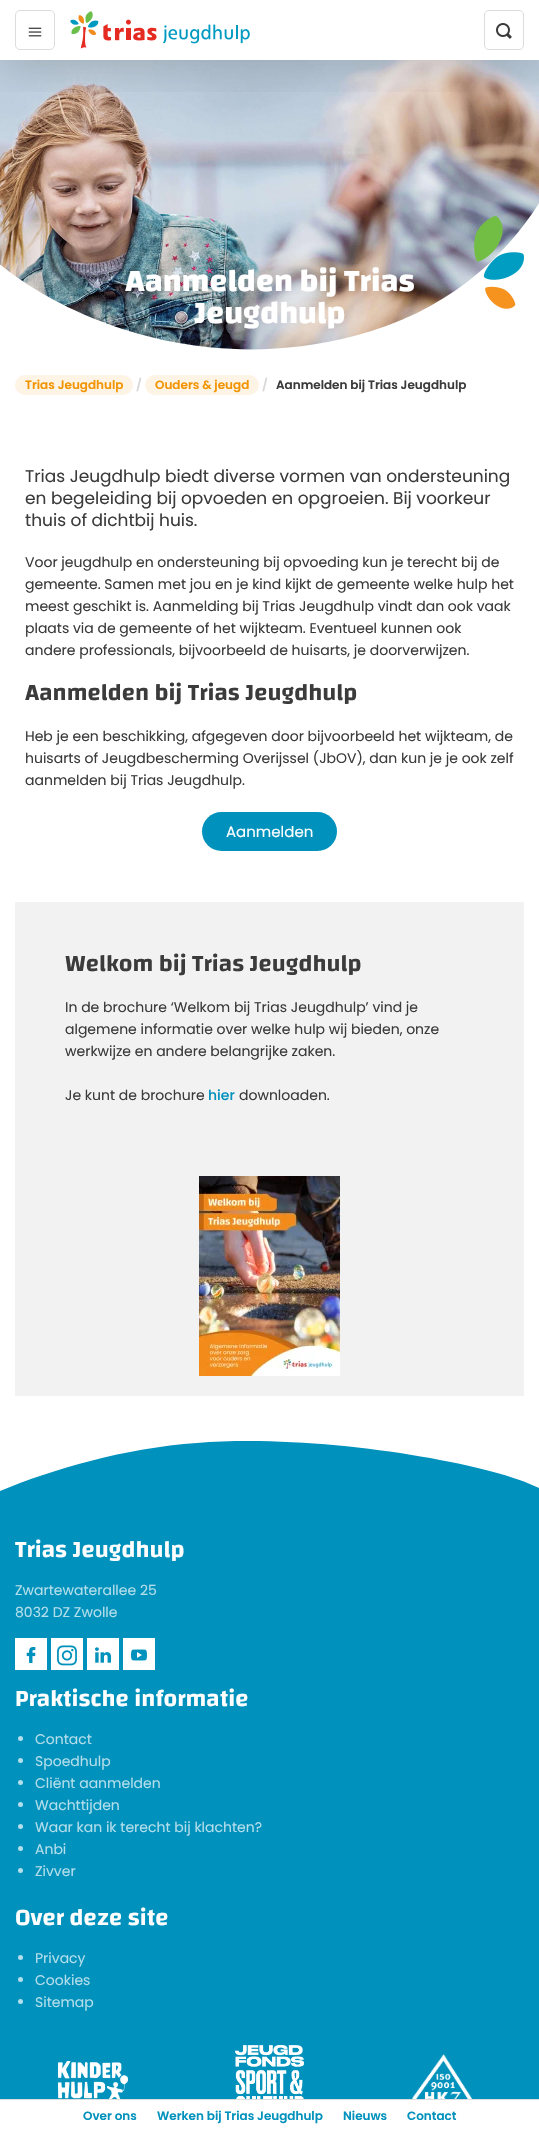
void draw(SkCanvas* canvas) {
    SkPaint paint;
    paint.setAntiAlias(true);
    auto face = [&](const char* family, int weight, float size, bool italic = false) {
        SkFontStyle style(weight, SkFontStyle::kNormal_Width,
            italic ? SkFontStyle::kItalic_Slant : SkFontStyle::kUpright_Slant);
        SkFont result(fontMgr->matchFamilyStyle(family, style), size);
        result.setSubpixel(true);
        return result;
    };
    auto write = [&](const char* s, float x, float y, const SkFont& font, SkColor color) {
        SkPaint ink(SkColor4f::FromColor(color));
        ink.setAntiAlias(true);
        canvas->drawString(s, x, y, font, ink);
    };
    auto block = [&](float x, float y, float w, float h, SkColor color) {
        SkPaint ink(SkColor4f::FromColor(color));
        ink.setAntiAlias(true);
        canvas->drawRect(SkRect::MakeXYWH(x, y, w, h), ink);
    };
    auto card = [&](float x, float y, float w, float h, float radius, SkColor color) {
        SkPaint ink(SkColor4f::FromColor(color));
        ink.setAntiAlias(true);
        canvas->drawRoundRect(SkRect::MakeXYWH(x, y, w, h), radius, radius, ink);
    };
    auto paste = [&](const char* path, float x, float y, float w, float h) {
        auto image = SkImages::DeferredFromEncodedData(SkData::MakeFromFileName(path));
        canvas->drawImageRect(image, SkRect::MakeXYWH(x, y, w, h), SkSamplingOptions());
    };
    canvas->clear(SK_ColorWHITE);
    paste("pic1.png", 0, 60, 539, 290);
    paint.setColor(SK_ColorWHITE);
    canvas->drawPath(SkPathBuilder().moveTo(354, 336).cubicTo(145, 391, -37, 263, -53, 197).lineTo(-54, 190).lineTo(-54, 360).lineTo(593, 360).lineTo(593, 60).cubicTo(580, 136, 531, 290, 354, 336).close().detach(), paint);
    auto kFont1 = face("Changa", 700, 32);
    write("Aanmelden bij Trias", 125, 291, kFont1, SK_ColorWHITE);
    write("Jeugdhulp", 194, 323, kFont1, SK_ColorWHITE);
    paste("pic2.png", 474, 216, 50, 93);
    card(15, 375, 118, 20, 10, SkColorSetRGB(254, 244, 230));
    auto kFont2 = face("Poppins", 600, 12);
    write("Trias Jeugdhulp", 25, 389, kFont2, SkColorSetRGB(242, 148, 0));
    write("/", 136, 389, kFont2, SkColorSetRGB(216, 216, 216));
    card(145, 375, 114, 20, 10, SkColorSetRGB(254, 244, 230));
    write("Ouders & jeugd", 155, 389, kFont2, SkColorSetRGB(242, 148, 0));
    write("/", 262, 389, kFont2, SkColorSetRGB(216, 216, 216));
    write("Aanmelden bij Trias Jeugdhulp", 276, 389, kFont2, SkColorSetRGB(59, 59, 59));
    auto kFont3 = face("Poppins", 400, 17);
    write("Trias Jeugdhulp biedt diverse vormen van ondersteuning", 25, 482, kFont3, SkColorSetRGB(59, 59, 59));
    write("en begeleiding bij opvoeden en opgroeien. Bij voorkeur", 25, 504, kFont3, SkColorSetRGB(59, 59, 59));
    write("thuis of dichtbij huis.", 25, 526, kFont3, SkColorSetRGB(59, 59, 59));
    auto kFont4 = face("Poppins", 400, 14);
    write("Voor jeugdhulp en ondersteuning bij opvoeding kun je terecht bij de", 25, 567, kFont4, SkColorSetRGB(59, 59, 59));
    write("gemeente. Samen met jou en je kind kijkt de gemeente welke hulp het", 25, 589, kFont4, SkColorSetRGB(59, 59, 59));
    write("meest geschikt is. Aanmelding bij Trias Jeugdhulp vindt dan ook vaak", 25, 611, kFont4, SkColorSetRGB(59, 59, 59));
    write("plaats via de gemeente of het wijkteam. Eventueel kunnen ook", 25, 633, kFont4, SkColorSetRGB(59, 59, 59));
    write("andere professionals, bijvoorbeeld de huisarts, je doorverwijzen.", 25, 655, kFont4, SkColorSetRGB(59, 59, 59));
    auto kFont5 = face("Changa", 600, 24);
    write("Aanmelden bij Trias Jeugdhulp", 25, 700, kFont5, SkColorSetRGB(59, 59, 59));
    write("Heb je een beschikking, afgegeven door bijvoorbeeld het wijkteam, de", 25, 741, kFont4, SkColorSetRGB(59, 59, 59));
    write("huisarts of Jeugdbescherming Overijssel (JbOV), dan kun je je ook zelf", 25, 763, kFont4, SkColorSetRGB(59, 59, 59));
    write("aanmelden bij Trias Jeugdhulp.", 25, 785, kFont4, SkColorSetRGB(59, 59, 59));
    card(202, 812, 135, 39, 19.5f, SkColorSetRGB(0, 146, 189));
    auto kFont6 = face("Poppins", 400, 15);
    write("Aanmelden", 226, 837, kFont6, SK_ColorWHITE);
    block(15, 902, 509, 494, SkColorSetRGB(242, 242, 242));
    write("Welkom bij Trias Jeugdhulp", 65, 971, kFont5, SkColorSetRGB(59, 59, 59));
    write("In de brochure ‘Welkom bij Trias Jeugdhulp’ vind je", 65, 1012, kFont4, SkColorSetRGB(59, 59, 59));
    write("algemene informatie over welke hulp wij bieden, onze", 65, 1034, kFont4, SkColorSetRGB(59, 59, 59));
    write("werkwijze en andere belangrijke zaken.", 65, 1056, kFont4, SkColorSetRGB(59, 59, 59));
    write("Je kunt de brochure", 65, 1100, kFont4, SkColorSetRGB(59, 59, 59));
    auto kFont7 = face("Poppins", 500, 14);
    write("hier", 208, 1100, kFont7, SkColorSetRGB(0, 145, 188));
    write("downloaden.", 239, 1100, kFont4, SkColorSetRGB(59, 59, 59));
    paste("pic3.png", 199, 1176, 141, 200);
    block(0, 1491, 539, 608, SkColorSetRGB(0, 145, 188));
    paint.setColor(SkColorSetRGB(0, 145, 188));
    canvas->drawPath(SkPathBuilder().moveTo(197, 1443).cubicTo(125, 1448, 53, 1469, 0, 1491).lineTo(539, 1491).lineTo(539, 1488).cubicTo(490, 1463, 318, 1433, 197, 1443).close().detach(), paint);
    write("Trias Jeugdhulp", 15, 1557, kFont5, SK_ColorWHITE);
    write("Zwartewaterallee 25", 15, 1595, kFont4, SkColorSetRGB(179, 222, 235));
    write("8032 DZ Zwolle", 15, 1617, kFont4, SkColorSetRGB(179, 222, 235));
    block(15, 1638, 32, 32, SK_ColorWHITE);
    paste("pic4.png", 26, 1647, 10, 16);
    block(51, 1638, 32, 32, SK_ColorWHITE);
    paste("pic5.png", 57, 1645, 20, 21);
    block(87, 1638, 32, 32, SK_ColorWHITE);
    paste("pic6.png", 95, 1647, 16, 16);
    block(123, 1638, 32, 32, SK_ColorWHITE);
    paste("pic7.png", 131, 1649, 16, 12);
    write("Praktische informatie", 15, 1706, kFont5, SK_ColorWHITE);
    paint.setColor(SkColorSetRGB(179, 222, 235));
    canvas->drawCircle(20.5f, 1738.5f, 2.5f, paint);
    write("Contact", 35, 1744, kFont4, SkColorSetRGB(179, 222, 235));
    canvas->drawCircle(20.5f, 1760.5f, 2.5f, paint);
    write("Spoedhulp", 35, 1766, kFont4, SkColorSetRGB(179, 222, 235));
    canvas->drawCircle(20.5f, 1782.5f, 2.5f, paint);
    write("Cliënt aanmelden", 35, 1788, kFont4, SkColorSetRGB(179, 222, 235));
    canvas->drawCircle(20.5f, 1804.5f, 2.5f, paint);
    write("Wachttijden", 35, 1810, kFont4, SkColorSetRGB(179, 222, 235));
    canvas->drawCircle(20.5f, 1826.5f, 2.5f, paint);
    write("Waar kan ik terecht bij klachten?", 35, 1832, kFont4, SkColorSetRGB(179, 222, 235));
    canvas->drawCircle(20.5f, 1848.5f, 2.5f, paint);
    write("Anbi", 35, 1854, kFont4, SkColorSetRGB(179, 222, 235));
    canvas->drawCircle(20.5f, 1870.5f, 2.5f, paint);
    write("Zivver", 35, 1876, kFont4, SkColorSetRGB(179, 222, 235));
    write("Over deze site", 15, 1925, kFont5, SK_ColorWHITE);
    canvas->drawCircle(20.5f, 1957.5f, 2.5f, paint);
    write("Privacy", 35, 1963, kFont4, SkColorSetRGB(179, 222, 235));
    canvas->drawCircle(20.5f, 1979.5f, 2.5f, paint);
    write("Cookies", 35, 1985, kFont4, SkColorSetRGB(179, 222, 235));
    canvas->drawCircle(20.5f, 2001.5f, 2.5f, paint);
    write("Sitemap", 35, 2007, kFont4, SkColorSetRGB(179, 222, 235));
    paste("pic8.png", 58, 2061, 70, 38);
    paste("pic9.png", 235, 2045, 69, 54);
    paste("pic10.png", 412, 2054, 61, 45);
    canvas->save();
    canvas->clipRect(SkRect::MakeXYWH(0, 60, 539, 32));
    paint.setColor(SkColorSetARGB(38, 0, 0, 0));
    paint.setMaskFilter(SkMaskFilter::MakeBlur(kNormal_SkBlurStyle, 20));
    canvas->drawRect(SkRect::MakeXYWH(0, 10, 539, 60), paint);
    paint.setMaskFilter(nullptr);
    canvas->restore();
    paint.setStyle(SkPaint::kStroke_Style);
    paint.setStrokeWidth(1);
    paint.setColor(SkColorSetRGB(221, 221, 221));
    canvas->drawRoundRect(SkRect::MakeXYWH(15.5f, 10.5f, 39, 39), 4.5f, 4.5f, paint);
    paste("pic11.png", 28, 27, 14, 10);
    paste("pic12.png", 70, 11, 180, 38);
    canvas->drawRoundRect(SkRect::MakeXYWH(484.5f, 10.5f, 39, 39), 4.5f, 4.5f, paint);
    paste("pic13.png", 496, 23, 16, 16);
    block(0, 2099, 539, 1, SkColorSetRGB(221, 221, 221));
    write("Over ons", 83, 2120, kFont2, SkColorSetRGB(0, 145, 188));
    write("Werken bij Trias Jeugdhulp", 157, 2120, kFont2, SkColorSetRGB(0, 145, 188));
    write("Nieuws", 343, 2120, kFont2, SkColorSetRGB(0, 145, 188));
    write("Contact", 407, 2120, kFont2, SkColorSetRGB(0, 145, 188));
}
